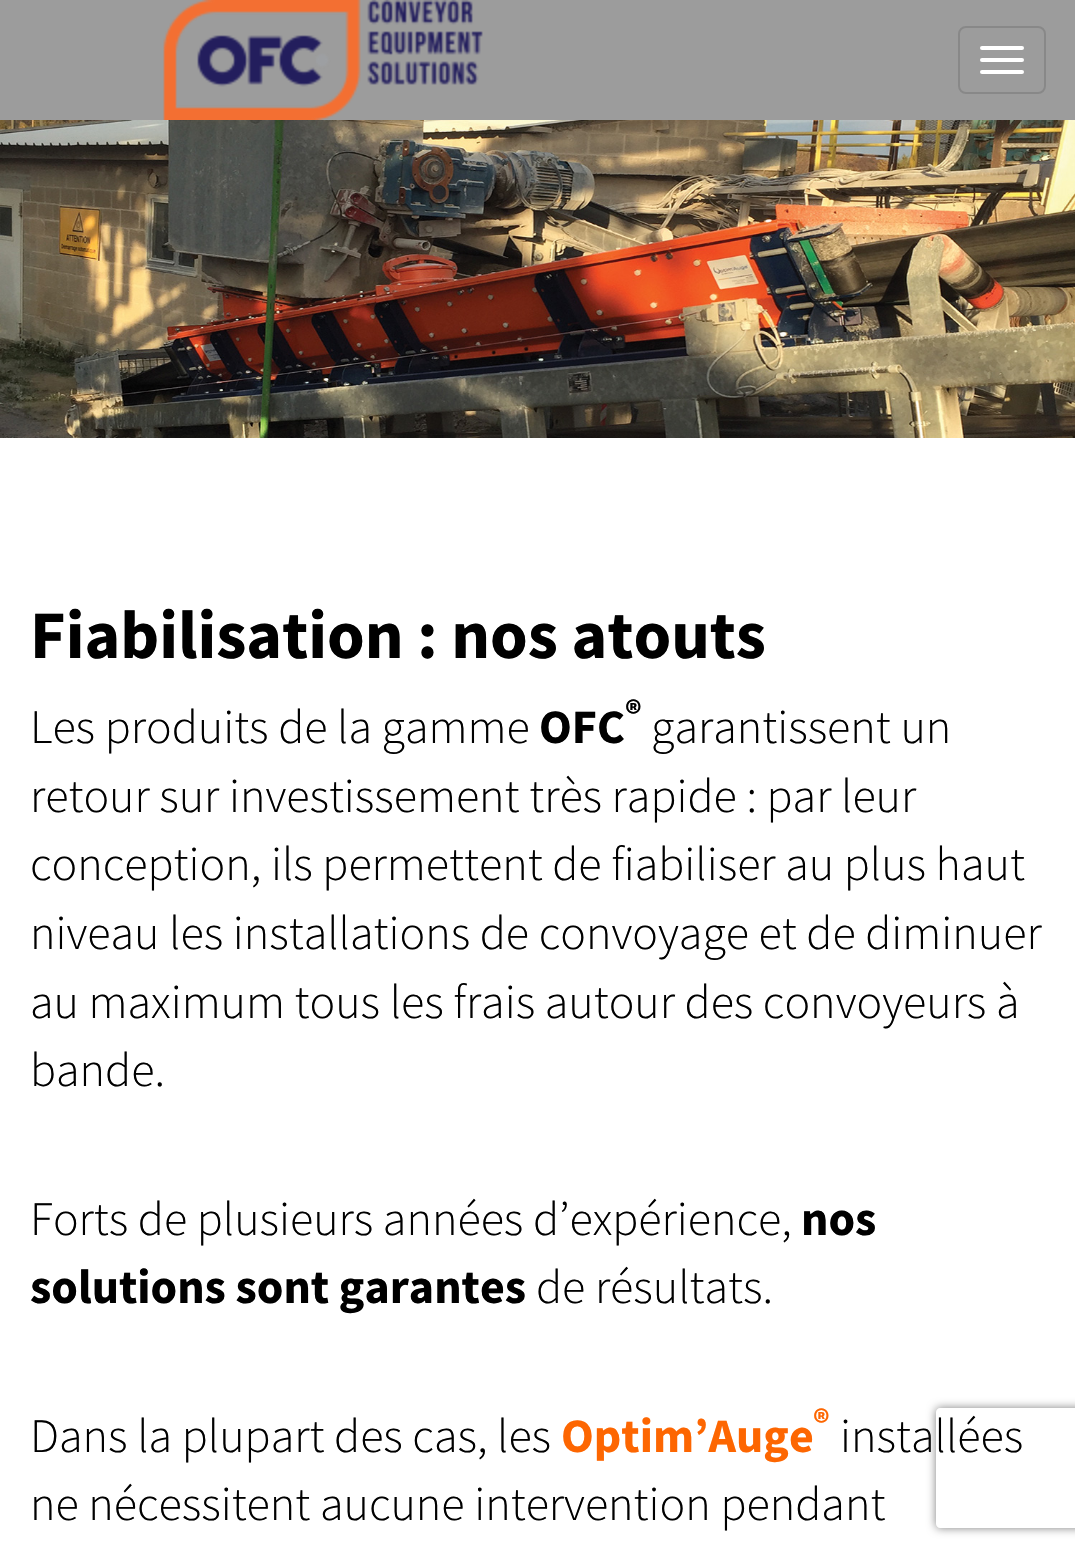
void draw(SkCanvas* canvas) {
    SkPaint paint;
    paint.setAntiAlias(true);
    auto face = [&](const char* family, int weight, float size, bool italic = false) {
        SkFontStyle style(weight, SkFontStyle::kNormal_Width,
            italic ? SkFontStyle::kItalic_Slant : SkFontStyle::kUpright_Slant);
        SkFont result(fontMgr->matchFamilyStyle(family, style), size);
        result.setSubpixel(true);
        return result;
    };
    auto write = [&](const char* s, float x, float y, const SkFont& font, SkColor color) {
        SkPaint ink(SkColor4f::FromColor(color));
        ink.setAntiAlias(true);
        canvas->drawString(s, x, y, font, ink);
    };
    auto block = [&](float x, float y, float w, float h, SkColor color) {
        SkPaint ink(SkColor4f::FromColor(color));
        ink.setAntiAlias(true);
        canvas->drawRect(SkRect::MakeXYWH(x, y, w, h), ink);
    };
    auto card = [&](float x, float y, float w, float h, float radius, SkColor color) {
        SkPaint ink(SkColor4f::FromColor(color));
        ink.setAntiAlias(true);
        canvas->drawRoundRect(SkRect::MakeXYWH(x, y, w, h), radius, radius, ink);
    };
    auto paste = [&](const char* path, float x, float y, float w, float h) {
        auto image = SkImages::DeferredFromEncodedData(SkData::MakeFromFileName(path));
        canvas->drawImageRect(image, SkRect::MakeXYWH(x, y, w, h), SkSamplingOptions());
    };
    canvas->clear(SK_ColorWHITE);
    block(0, 0, 1075, 120, SkColorSetRGB(156, 156, 156));
    paste("pic1.png", 163, 0, 320, 120);
    paint.setStyle(SkPaint::kStroke_Style);
    paint.setStrokeWidth(2);
    paint.setColor(SkColorSetRGB(136, 136, 136));
    canvas->drawRoundRect(SkRect::MakeXYWH(959, 27, 86, 66), 7, 7, paint);
    card(980, 46, 44, 4, 2, SK_ColorWHITE);
    card(980, 58, 44, 4, 2, SK_ColorWHITE);
    card(980, 70, 44, 4, 2, SK_ColorWHITE);
    paste("pic2.png", 0, 120, 1075, 318);
    auto kFont1 = face("Source Sans Pro", 700, 68);
    write("Fiabilisation : nos atouts", 30, 658, kFont1, SK_ColorBLACK);
    auto kFont2 = face("Source Sans Pro", 700, 36);
    write("®", 625, 725, kFont2, SK_ColorBLACK);
    auto kFont3 = face("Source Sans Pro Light", 300, 48);
    write("Les produits de la gamme", 30, 743, kFont3, SK_ColorBLACK);
    auto kFont4 = face("Source Sans Pro", 700, 48);
    write("OFC", 539, 743, kFont4, SK_ColorBLACK);
    write("garantissent un", 651, 743, kFont3, SK_ColorBLACK);
    write("retour sur investissement très rapide : par leur", 30, 812, kFont3, SK_ColorBLACK);
    write("conception, ils permettent de fiabiliser au plus haut", 30, 880, kFont3, SK_ColorBLACK);
    write("niveau les installations de convoyage et de diminuer", 30, 949, kFont3, SK_ColorBLACK);
    write("au maximum tous les frais autour des convoyeurs à", 30, 1018, kFont3, SK_ColorBLACK);
    write("bande.", 30, 1086, kFont3, SK_ColorBLACK);
    write("Forts de plusieurs années d’expérience,", 30, 1235, kFont3, SK_ColorBLACK);
    write("nos", 801, 1235, kFont4, SK_ColorBLACK);
    write("solutions sont garantes", 30, 1303, kFont4, SK_ColorBLACK);
    write("de résultats.", 536, 1303, kFont3, SK_ColorBLACK);
    write("Dans la plupart des cas, les", 30, 1452, kFont3, SK_ColorBLACK);
    write("Optim’Auge", 561, 1452, kFont4, SkColorSetRGB(253, 102, 1));
    write("®", 813, 1434, kFont2, SkColorSetRGB(253, 102, 1));
    write("installées", 840, 1452, kFont3, SK_ColorBLACK);
    write("ne nécessitent aucune intervention pendant", 30, 1520, kFont3, SK_ColorBLACK);
    canvas->save();
    canvas->clipPath(SkPathBuilder(SkPathFillType::kEvenOdd).moveTo(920, 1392).lineTo(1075, 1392).lineTo(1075, 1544).lineTo(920, 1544).close().moveTo(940, 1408).lineTo(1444, 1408).cubicTo(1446, 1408, 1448, 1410, 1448, 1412).lineTo(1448, 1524).cubicTo(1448, 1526, 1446, 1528, 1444, 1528).lineTo(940, 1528).cubicTo(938, 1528, 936, 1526, 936, 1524).lineTo(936, 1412).cubicTo(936, 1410, 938, 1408, 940, 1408).close().detach(), true);
    paint.setStyle(SkPaint::kFill_Style);
    paint.setColor(SkColorSetRGB(128, 128, 128));
    paint.setMaskFilter(SkMaskFilter::MakeBlur(kNormal_SkBlurStyle, 5));
    canvas->drawRoundRect(SkRect::MakeXYWH(936, 1408, 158, 120), 4, 4, paint);
    paint.setMaskFilter(nullptr);
    canvas->restore();
}
